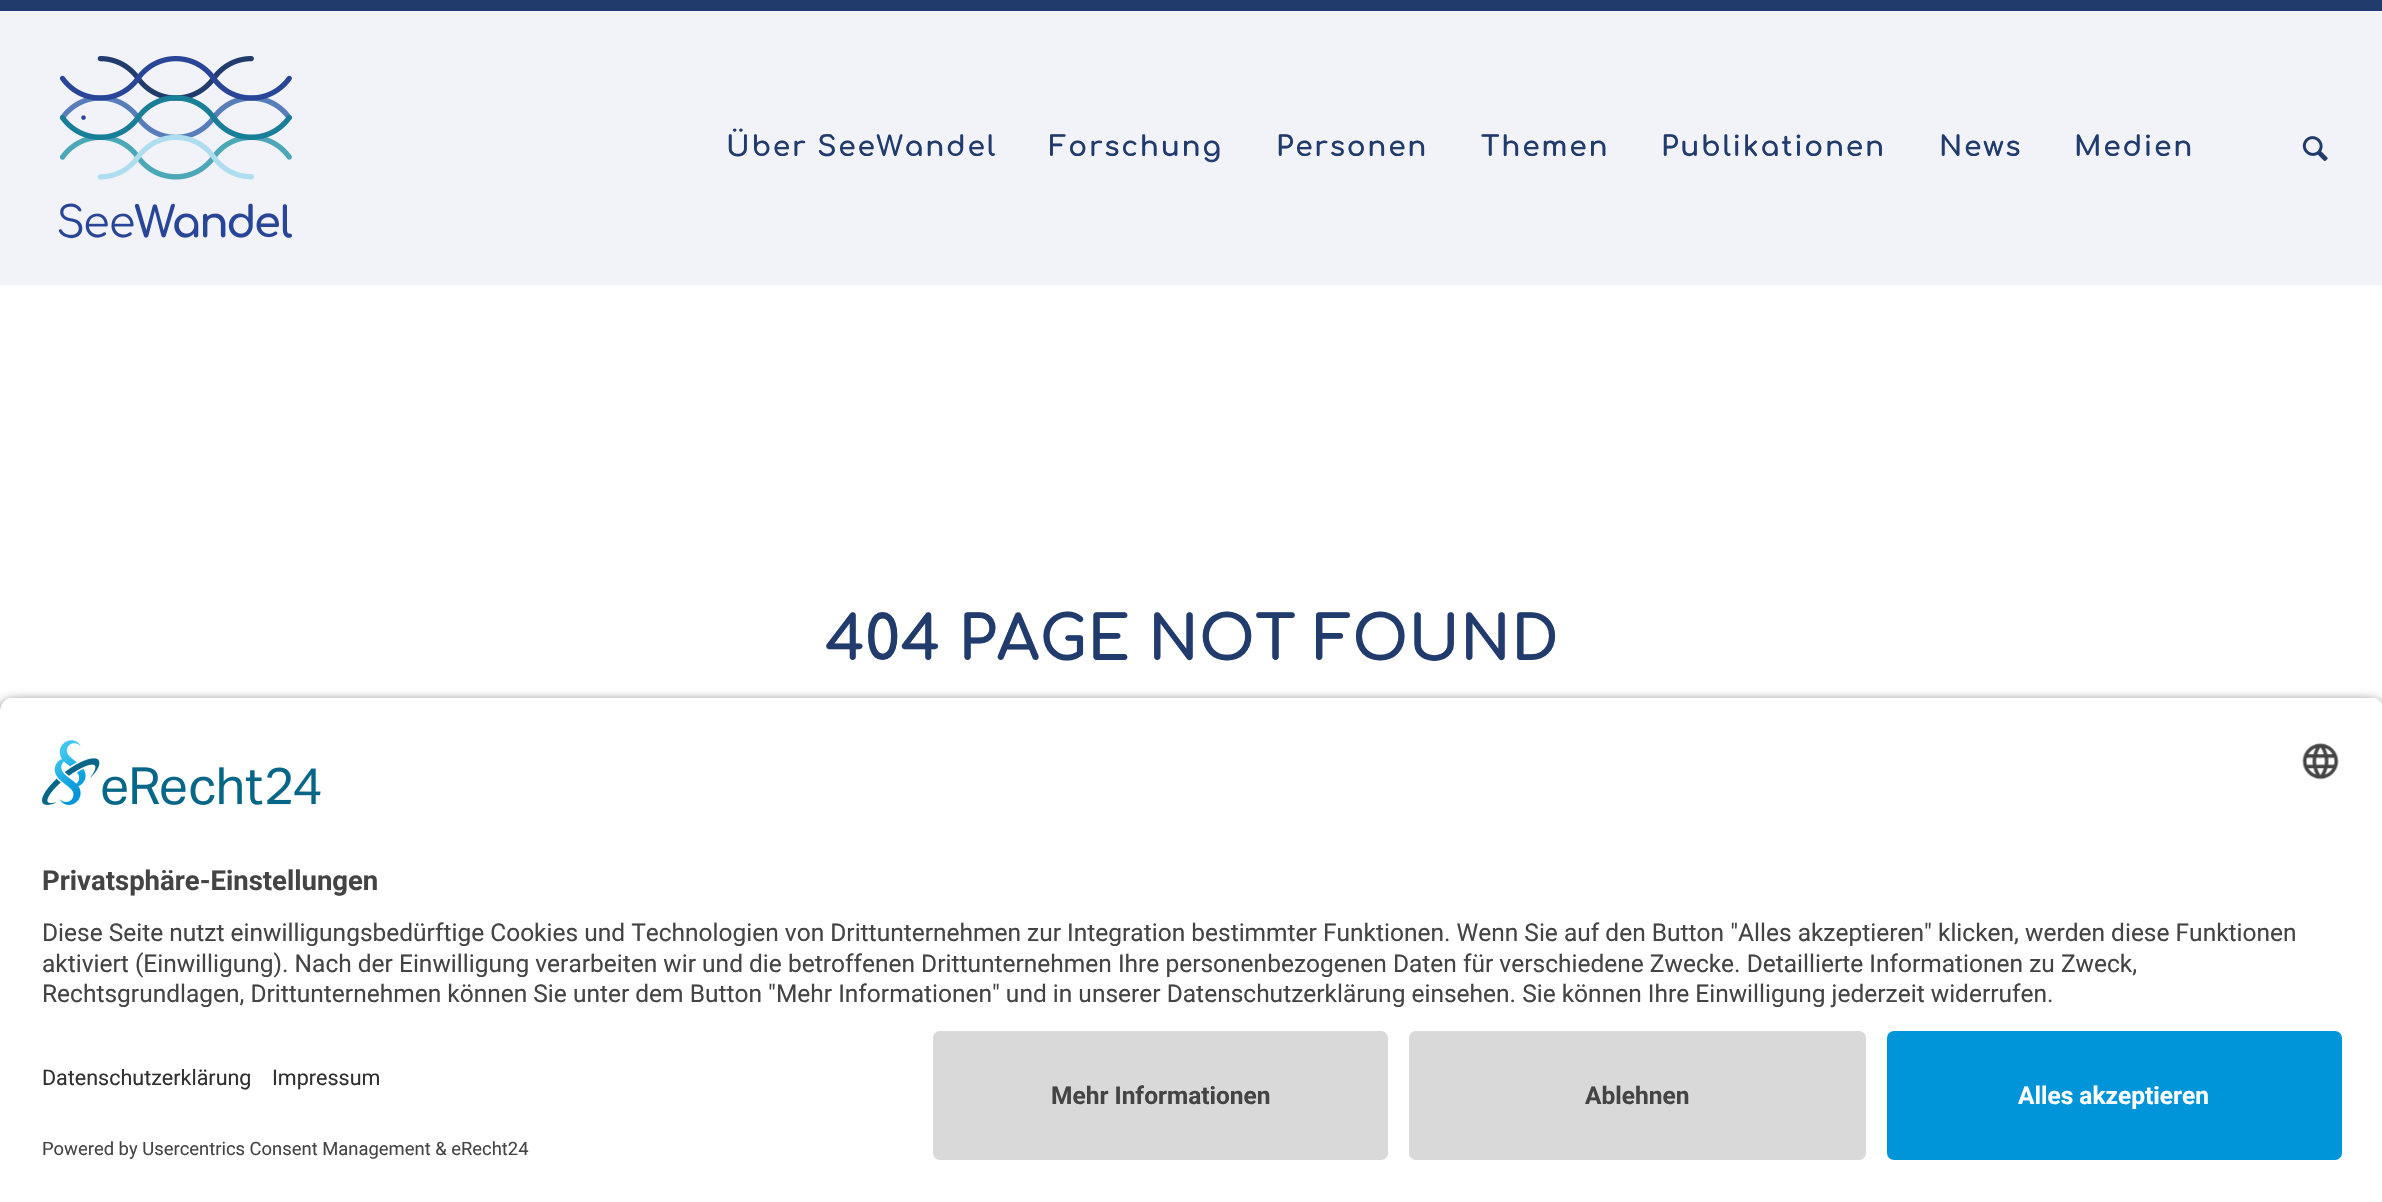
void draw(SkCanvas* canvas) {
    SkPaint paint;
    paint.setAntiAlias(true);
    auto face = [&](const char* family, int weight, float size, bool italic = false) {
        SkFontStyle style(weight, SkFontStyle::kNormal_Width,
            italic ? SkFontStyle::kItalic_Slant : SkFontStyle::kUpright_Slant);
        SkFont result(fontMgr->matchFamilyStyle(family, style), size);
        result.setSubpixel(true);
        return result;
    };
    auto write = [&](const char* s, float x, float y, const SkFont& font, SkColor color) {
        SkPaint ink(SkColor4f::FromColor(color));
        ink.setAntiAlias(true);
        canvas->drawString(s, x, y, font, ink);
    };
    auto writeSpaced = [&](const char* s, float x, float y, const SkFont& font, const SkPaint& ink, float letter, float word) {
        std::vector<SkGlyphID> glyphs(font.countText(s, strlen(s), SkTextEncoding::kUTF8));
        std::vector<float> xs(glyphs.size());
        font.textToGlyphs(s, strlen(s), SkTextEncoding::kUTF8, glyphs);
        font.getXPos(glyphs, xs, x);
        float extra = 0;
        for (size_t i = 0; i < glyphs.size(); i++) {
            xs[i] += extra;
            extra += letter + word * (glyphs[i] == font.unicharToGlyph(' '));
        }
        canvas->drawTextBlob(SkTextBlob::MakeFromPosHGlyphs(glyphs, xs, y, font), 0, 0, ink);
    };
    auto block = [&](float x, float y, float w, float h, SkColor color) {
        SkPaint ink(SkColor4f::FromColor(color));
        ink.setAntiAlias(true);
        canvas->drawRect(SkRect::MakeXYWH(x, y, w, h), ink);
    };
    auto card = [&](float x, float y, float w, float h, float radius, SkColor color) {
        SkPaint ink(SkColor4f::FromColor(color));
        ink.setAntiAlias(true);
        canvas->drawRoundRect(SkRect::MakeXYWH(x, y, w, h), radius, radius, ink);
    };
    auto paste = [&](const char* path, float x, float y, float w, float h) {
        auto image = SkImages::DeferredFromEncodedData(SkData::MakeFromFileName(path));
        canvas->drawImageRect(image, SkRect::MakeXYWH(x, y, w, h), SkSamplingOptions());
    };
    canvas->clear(SK_ColorWHITE);
    block(0, 0, 2382, 11, SkColorSetRGB(33, 60, 108));
    block(0, 11, 2382, 274, SkColorSetRGB(242, 243, 248));
    paste("pic1.png", 58, 56, 235, 183);
    auto kFont1 = face("Comfortaa", 700, 28);
    paint.setColor(SkColorSetRGB(33, 60, 108));
    writeSpaced("Über SeeWandel", 726, 156, kFont1, paint, 1.75f, 0);
    writeSpaced("Forschung", 1049, 156, kFont1, paint, 1.75f, 0);
    writeSpaced("Personen", 1276, 156, kFont1, paint, 1.75f, 0);
    writeSpaced("Themen", 1481, 156, kFont1, paint, 1.75f, 0);
    writeSpaced("Publikationen", 1661, 156, kFont1, paint, 1.75f, 0);
    writeSpaced("News", 1939, 156, kFont1, paint, 1.75f, 0);
    writeSpaced("Medien", 2074, 156, kFont1, paint, 1.75f, 0);
    paste("pic2.png", 2302, 136, 26, 25);
    auto kFont2 = face("Comfortaa", 700, 61.25f);
    write("404 PAGE NOT FOUND", 825, 660, kFont2, SkColorSetRGB(33, 60, 108));
    paint.setColor(SkColorSetARGB(204, 0, 0, 0));
    paint.setMaskFilter(SkMaskFilter::MakeBlur(kNormal_SkBlurStyle, 6));
    canvas->drawRoundRect(SkRect::MakeXYWH(0, 702, 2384, 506), 14, 14, paint);
    paint.setMaskFilter(nullptr);
    canvas->save();
    canvas->clipPath(SkPathBuilder().moveTo(14, 697).lineTo(2370, 697).cubicTo(2377.5f, 697, 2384, 703.5f, 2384, 711).lineTo(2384, 1017).lineTo(0, 1017).lineTo(0, 711).cubicTo(0, 703.5f, 6.5f, 697, 14, 697).close().detach(), true);
    block(0, 698, 2382, 319, SK_ColorWHITE);
    canvas->restore();
    paste("pic3.png", 42, 740, 279, 65);
    paste("pic4.png", 2302, 743, 37, 37);
    auto kFont3 = face("Roboto", 700, 27.5f);
    write("Privatsphäre-Einstellungen", 42, 890, kFont3, SkColorSetRGB(68, 68, 68));
    auto kFont4 = face("Roboto", 400, 24.5f);
    write("Diese Seite nutzt einwilligungsbedürftige Cookies und Technologien von Drittunternehmen zur Integration bestimmter Funktionen. Wenn Sie auf den Button \"Alles akzeptieren\" klicken, werden diese Funktionen", 42, 941, kFont4, SkColorSetRGB(68, 68, 68));
    write("aktiviert (Einwilligung). Nach der Einwilligung verarbeiten wir und die betroffenen Drittunternehmen Ihre personenbezogenen Daten für verschiedene Zwecke. Detaillierte Informationen zu Zweck,", 42, 972, kFont4, SkColorSetRGB(68, 68, 68));
    write("Rechtsgrundlagen, Drittunternehmen können Sie unter dem Button \"Mehr Informationen\" und in unserer Datenschutzerklärung einsehen. Sie können Ihre Einwilligung jederzeit widerrufen.", 42, 1002, kFont4, SkColorSetRGB(68, 68, 68));
    block(0, 1017, 2382, 185, SK_ColorWHITE);
    auto kFont5 = face("Roboto", 400, 21.5f);
    write("Datenschutzerklärung", 42, 1085, kFont5, SkColorSetRGB(48, 48, 48));
    write("Impressum", 272, 1085, kFont5, SkColorSetRGB(48, 48, 48));
    auto kFont6 = face("Roboto", 400, 18.4f);
    write("Powered by Usercentrics Consent Management & eRecht24", 42, 1155, kFont6, SkColorSetRGB(68, 68, 68));
    card(933, 1031, 455, 129, 7, SkColorSetRGB(217, 217, 217));
    auto kFont7 = face("Roboto", 700, 24.5f);
    write("Mehr Informationen", 1051, 1104, kFont7, SkColorSetRGB(68, 68, 68));
    card(1409, 1031, 457, 129, 7, SkColorSetRGB(217, 217, 217));
    write("Ablehnen", 1585, 1104, kFont7, SkColorSetRGB(68, 68, 68));
    card(1887, 1031, 455, 129, 7, SkColorSetRGB(0, 148, 216));
    write("Alles akzeptieren", 2018, 1104, kFont7, SK_ColorWHITE);
}
